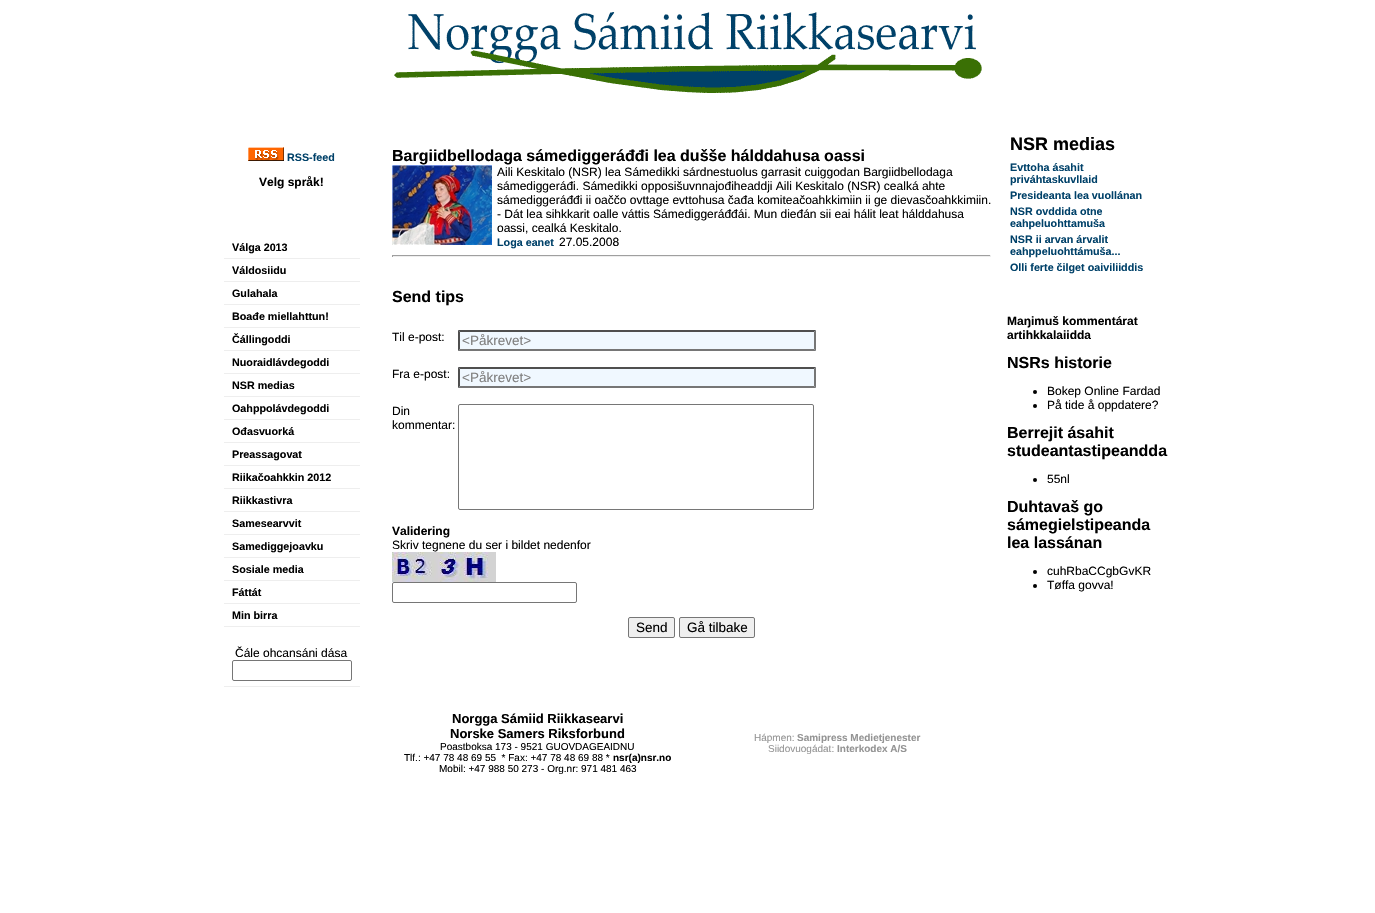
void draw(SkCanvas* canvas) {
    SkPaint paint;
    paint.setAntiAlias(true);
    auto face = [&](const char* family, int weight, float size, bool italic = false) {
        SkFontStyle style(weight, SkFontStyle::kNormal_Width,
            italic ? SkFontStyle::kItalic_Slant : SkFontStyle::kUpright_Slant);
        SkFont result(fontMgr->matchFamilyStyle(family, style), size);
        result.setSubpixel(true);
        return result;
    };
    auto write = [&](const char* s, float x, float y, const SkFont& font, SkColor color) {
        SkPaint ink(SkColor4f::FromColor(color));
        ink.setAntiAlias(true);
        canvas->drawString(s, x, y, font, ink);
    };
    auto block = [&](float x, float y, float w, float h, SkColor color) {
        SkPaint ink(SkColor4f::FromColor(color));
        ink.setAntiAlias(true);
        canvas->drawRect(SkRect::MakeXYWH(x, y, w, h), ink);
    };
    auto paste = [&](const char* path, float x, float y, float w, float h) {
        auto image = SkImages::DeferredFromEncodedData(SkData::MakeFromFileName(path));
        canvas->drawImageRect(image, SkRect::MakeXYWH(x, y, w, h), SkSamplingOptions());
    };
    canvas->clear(SK_ColorWHITE);
    paste("pic1.png", 394, 12, 588, 81);
    paste("pic2.png", 248, 147, 36, 14);
    auto kFont1 = face("Liberation Sans", 700, 10.75f);
    write("RSS-feed", 287, 161, kFont1, SkColorSetRGB(0, 65, 105));
    auto kFont2 = face("Liberation Sans", 700, 12);
    write("Velg språk!", 259, 186, kFont2, SK_ColorBLACK);
    block(224, 258, 136, 1, SkColorSetRGB(238, 238, 238));
    write("Válga 2013", 232, 251, kFont1, SK_ColorBLACK);
    block(224, 281, 136, 1, SkColorSetRGB(238, 238, 238));
    write("Váldosiidu", 232, 274, kFont1, SK_ColorBLACK);
    block(224, 304, 136, 1, SkColorSetRGB(238, 238, 238));
    write("Gulahala", 232, 297, kFont1, SK_ColorBLACK);
    block(224, 327, 136, 1, SkColorSetRGB(238, 238, 238));
    write("Boađe miellahttun!", 232, 320, kFont1, SK_ColorBLACK);
    block(224, 350, 136, 1, SkColorSetRGB(238, 238, 238));
    write("Čállingoddi", 232, 343, kFont1, SK_ColorBLACK);
    block(224, 373, 136, 1, SkColorSetRGB(238, 238, 238));
    write("Nuoraidlávdegoddi", 232, 366, kFont1, SK_ColorBLACK);
    block(224, 396, 136, 1, SkColorSetRGB(238, 238, 238));
    write("NSR medias", 232, 389, kFont1, SK_ColorBLACK);
    block(224, 419, 136, 1, SkColorSetRGB(238, 238, 238));
    write("Oahppolávdegoddi", 232, 412, kFont1, SK_ColorBLACK);
    block(224, 442, 136, 1, SkColorSetRGB(238, 238, 238));
    write("Ođasvuorká", 232, 435, kFont1, SK_ColorBLACK);
    block(224, 465, 136, 1, SkColorSetRGB(238, 238, 238));
    write("Preassagovat", 232, 458, kFont1, SK_ColorBLACK);
    block(224, 488, 136, 1, SkColorSetRGB(238, 238, 238));
    write("Riikačoahkkin 2012", 232, 481, kFont1, SK_ColorBLACK);
    block(224, 511, 136, 1, SkColorSetRGB(238, 238, 238));
    write("Riikkastivra", 232, 504, kFont1, SK_ColorBLACK);
    block(224, 534, 136, 1, SkColorSetRGB(238, 238, 238));
    write("Samesearvvit", 232, 527, kFont1, SK_ColorBLACK);
    block(224, 557, 136, 1, SkColorSetRGB(238, 238, 238));
    write("Samediggejoavku", 232, 550, kFont1, SK_ColorBLACK);
    block(224, 580, 136, 1, SkColorSetRGB(238, 238, 238));
    write("Sosiale media", 232, 573, kFont1, SK_ColorBLACK);
    block(224, 603, 136, 1, SkColorSetRGB(238, 238, 238));
    write("Fáttát", 232, 596, kFont1, SK_ColorBLACK);
    block(224, 626, 136, 1, SkColorSetRGB(238, 238, 238));
    write("Min birra", 232, 619, kFont1, SK_ColorBLACK);
    block(224, 686, 136, 1, SkColorSetRGB(238, 238, 238));
    auto kFont3 = face("Liberation Sans", 400, 12);
    write("Čále ohcansáni dása", 235, 657, kFont3, SK_ColorBLACK);
    paint.setStyle(SkPaint::kStroke_Style);
    paint.setStrokeWidth(1);
    paint.setColor(SkColorSetRGB(118, 118, 118));
    canvas->drawRoundRect(SkRect::MakeXYWH(232.5f, 660.5f, 119, 20), 1.5f, 1.5f, paint);
    auto kFont4 = face("Liberation Sans", 700, 16);
    write("Bargiidbellodaga sámediggeráđđi lea dušše hálddahusa oassi", 392, 161, kFont4, SK_ColorBLACK);
    paste("pic3.png", 392, 165, 100, 80);
    write("Aili Keskitalo (NSR) lea Sámedikki sárdnestuolus garrasit cuiggodan Bargiidbellodaga", 497, 176, kFont3, SK_ColorBLACK);
    write("sámediggeráđi. Sámedikki opposišuvnnajođiheaddji Aili Keskitalo (NSR) cealká ahte", 497, 190, kFont3, SK_ColorBLACK);
    write("sámediggeráđđi ii oaččo ovttage evttohusa čađa komiteačoahkkimiin ii ge dievasčoahkkimiin.", 497, 204, kFont3, SK_ColorBLACK);
    write("- Dát lea sihkkarit oalle váttis Sámediggeráđđái. Mun dieđán sii eai hálit leat hálddahusa", 497, 218, kFont3, SK_ColorBLACK);
    write("oassi, cealká Keskitalo.", 497, 232, kFont3, SK_ColorBLACK);
    write("Loga eanet", 497, 246, kFont1, SkColorSetRGB(0, 65, 105));
    write("27.05.2008", 559, 246, kFont3, SK_ColorBLACK);
    block(392, 255, 599, 1, SkColorSetRGB(159, 159, 159));
    block(990, 255, 1, 2, SkColorSetRGB(238, 238, 238));
    block(392, 256, 599, 1, SkColorSetRGB(238, 238, 238));
    block(392, 255, 1, 2, SkColorSetRGB(159, 159, 159));
    write("Send tips", 392, 302, kFont4, SK_ColorBLACK);
    write("Til e-post:", 392, 341, kFont3, SK_ColorBLACK);
    block(458, 330, 358, 21, SkColorSetRGB(240, 248, 255));
    paint.setStyle(SkPaint::kFill_Style);
    paint.setColor(SkColorSetRGB(79, 79, 79));
    canvas->drawPath(SkPathBuilder().moveTo(458, 330).lineTo(816, 330).lineTo(814, 332).lineTo(460, 332).close().detach(), paint);
    paint.setColor(SkColorSetRGB(118, 118, 118));
    canvas->drawPath(SkPathBuilder().moveTo(816, 330).lineTo(816, 351).lineTo(814, 349).lineTo(814, 332).close().detach(), paint);
    canvas->drawPath(SkPathBuilder().moveTo(816, 351).lineTo(458, 351).lineTo(460, 349).lineTo(814, 349).close().detach(), paint);
    paint.setColor(SkColorSetRGB(79, 79, 79));
    canvas->drawPath(SkPathBuilder().moveTo(458, 351).lineTo(458, 330).lineTo(460, 332).lineTo(460, 349).close().detach(), paint);
    auto kFont5 = face("Liberation Sans", 400, 13.5f);
    write("<Påkrevet>", 462, 345, kFont5, SkColorSetRGB(128, 128, 128));
    write("Fra e-post:", 392, 378, kFont3, SK_ColorBLACK);
    block(458, 367, 358, 21, SkColorSetRGB(240, 248, 255));
    canvas->drawPath(SkPathBuilder().moveTo(458, 367).lineTo(816, 367).lineTo(814, 369).lineTo(460, 369).close().detach(), paint);
    paint.setColor(SkColorSetRGB(118, 118, 118));
    canvas->drawPath(SkPathBuilder().moveTo(816, 367).lineTo(816, 388).lineTo(814, 386).lineTo(814, 369).close().detach(), paint);
    canvas->drawPath(SkPathBuilder().moveTo(816, 388).lineTo(458, 388).lineTo(460, 386).lineTo(814, 386).close().detach(), paint);
    paint.setColor(SkColorSetRGB(79, 79, 79));
    canvas->drawPath(SkPathBuilder().moveTo(458, 388).lineTo(458, 367).lineTo(460, 369).lineTo(460, 386).close().detach(), paint);
    write("<Påkrevet>", 462, 382, kFont5, SkColorSetRGB(128, 128, 128));
    write("Din", 392, 415, kFont3, SK_ColorBLACK);
    write("kommentar:", 392, 429, kFont3, SK_ColorBLACK);
    paint.setStyle(SkPaint::kStroke_Style);
    paint.setColor(SkColorSetRGB(118, 118, 118));
    canvas->drawRoundRect(SkRect::MakeXYWH(458.5f, 404.5f, 355, 105), 1.5f, 1.5f, paint);
    write("Validering", 392, 535, kFont2, SK_ColorBLACK);
    write("Skriv tegnene du ser i bildet nedenfor", 392, 549, kFont3, SK_ColorBLACK);
    paste("pic4.png", 392, 552, 104, 30);
    canvas->drawRoundRect(SkRect::MakeXYWH(392.5f, 582.5f, 184, 20), 1.5f, 1.5f, paint);
    paint.setStyle(SkPaint::kFill_Style);
    paint.setColor(SkColorSetRGB(239, 239, 239));
    canvas->drawRoundRect(SkRect::MakeXYWH(628.5f, 617.5f, 46, 20), 1.5f, 1.5f, paint);
    paint.setStyle(SkPaint::kStroke_Style);
    paint.setColor(SkColorSetRGB(118, 118, 118));
    canvas->drawRoundRect(SkRect::MakeXYWH(628.5f, 617.5f, 46, 20), 1.5f, 1.5f, paint);
    write("Send", 636, 632, kFont5, SK_ColorBLACK);
    paint.setStyle(SkPaint::kFill_Style);
    paint.setColor(SkColorSetRGB(239, 239, 239));
    canvas->drawRoundRect(SkRect::MakeXYWH(679.5f, 617.5f, 75, 20), 1.5f, 1.5f, paint);
    paint.setStyle(SkPaint::kStroke_Style);
    paint.setColor(SkColorSetRGB(118, 118, 118));
    canvas->drawRoundRect(SkRect::MakeXYWH(679.5f, 617.5f, 75, 20), 1.5f, 1.5f, paint);
    write("Gå tilbake", 687, 632, kFont5, SK_ColorBLACK);
    auto kFont6 = face("Liberation Sans", 700, 18);
    write("NSR medias", 1010, 150, kFont6, SK_ColorBLACK);
    write("Evttoha ásahit", 1010, 171, kFont1, SkColorSetRGB(0, 65, 105));
    write("priváhtaskuvllaid", 1010, 183, kFont1, SkColorSetRGB(0, 65, 105));
    write("Presideanta lea vuollánan", 1010, 199, kFont1, SkColorSetRGB(0, 65, 105));
    write("NSR ovddida otne", 1010, 215, kFont1, SkColorSetRGB(0, 65, 105));
    write("eahpeluohttamuša", 1010, 227, kFont1, SkColorSetRGB(0, 65, 105));
    write("NSR ii arvan árvalit", 1010, 243, kFont1, SkColorSetRGB(0, 65, 105));
    write("eahppeluohttámuša...", 1010, 255, kFont1, SkColorSetRGB(0, 65, 105));
    write("Olli ferte čilget oaiviliiddis", 1010, 271, kFont1, SkColorSetRGB(0, 65, 105));
    write("Maŋimuš kommentárat", 1007, 325, kFont2, SK_ColorBLACK);
    write("artihkkalaiidda", 1007, 339, kFont2, SK_ColorBLACK);
    write("NSRs historie", 1007, 368, kFont4, SK_ColorBLACK);
    paint.setStyle(SkPaint::kFill_Style);
    paint.setColor(SK_ColorBLACK);
    canvas->drawCircle(1035, 392, 2, paint);
    write("Bokep Online Fardad", 1047, 395, kFont3, SK_ColorBLACK);
    canvas->drawCircle(1035, 406, 2, paint);
    write("På tide å oppdatere?", 1047, 409, kFont3, SK_ColorBLACK);
    write("Berrejit ásahit", 1007, 438, kFont4, SK_ColorBLACK);
    write("studeantastipeandda", 1007, 456, kFont4, SK_ColorBLACK);
    canvas->drawCircle(1035, 480, 2, paint);
    write("55nl", 1047, 483, kFont3, SK_ColorBLACK);
    write("Duhtavaš go", 1007, 512, kFont4, SK_ColorBLACK);
    write("sámegielstipeanda", 1007, 530, kFont4, SK_ColorBLACK);
    write("lea lassánan", 1007, 548, kFont4, SK_ColorBLACK);
    canvas->drawCircle(1035, 572, 2, paint);
    write("cuhRbaCCgbGvKR", 1047, 575, kFont3, SK_ColorBLACK);
    canvas->drawCircle(1035, 586, 2, paint);
    write("Tøffa govva!", 1047, 589, kFont3, SK_ColorBLACK);
    auto kFont7 = face("Liberation Sans", 700, 13);
    write("Norgga Sámiid Riikkasearvi", 452, 723, kFont7, SK_ColorBLACK);
    write("Norske Samers Riksforbund", 450, 738, kFont7, SK_ColorBLACK);
    auto kFont8 = face("Liberation Sans", 400, 10);
    write("Poastboksa 173 - 9521 GUOVDAGEAIDNU", 440, 750, kFont8, SK_ColorBLACK);
    write("Tlf.: +47 78 48 69 55  * Fax: +47 78 48 69 88 *", 404, 761, kFont8, SK_ColorBLACK);
    auto kFont9 = face("Liberation Sans", 700, 10);
    write("nsr(a)nsr.no", 613, 761, kFont9, SK_ColorBLACK);
    write("Mobil: +47 988 50 273 - Org.nr: 971 481 463", 439, 772, kFont8, SK_ColorBLACK);
    write("Hápmen:", 754, 741, kFont8, SkColorSetRGB(148, 148, 148));
    write("Samipress Medietjenester", 797, 741, kFont9, SkColorSetRGB(148, 148, 148));
    write("Siidovuogádat:", 768, 752, kFont8, SkColorSetRGB(148, 148, 148));
    write("Interkodex A/S", 837, 752, kFont9, SkColorSetRGB(148, 148, 148));
}
